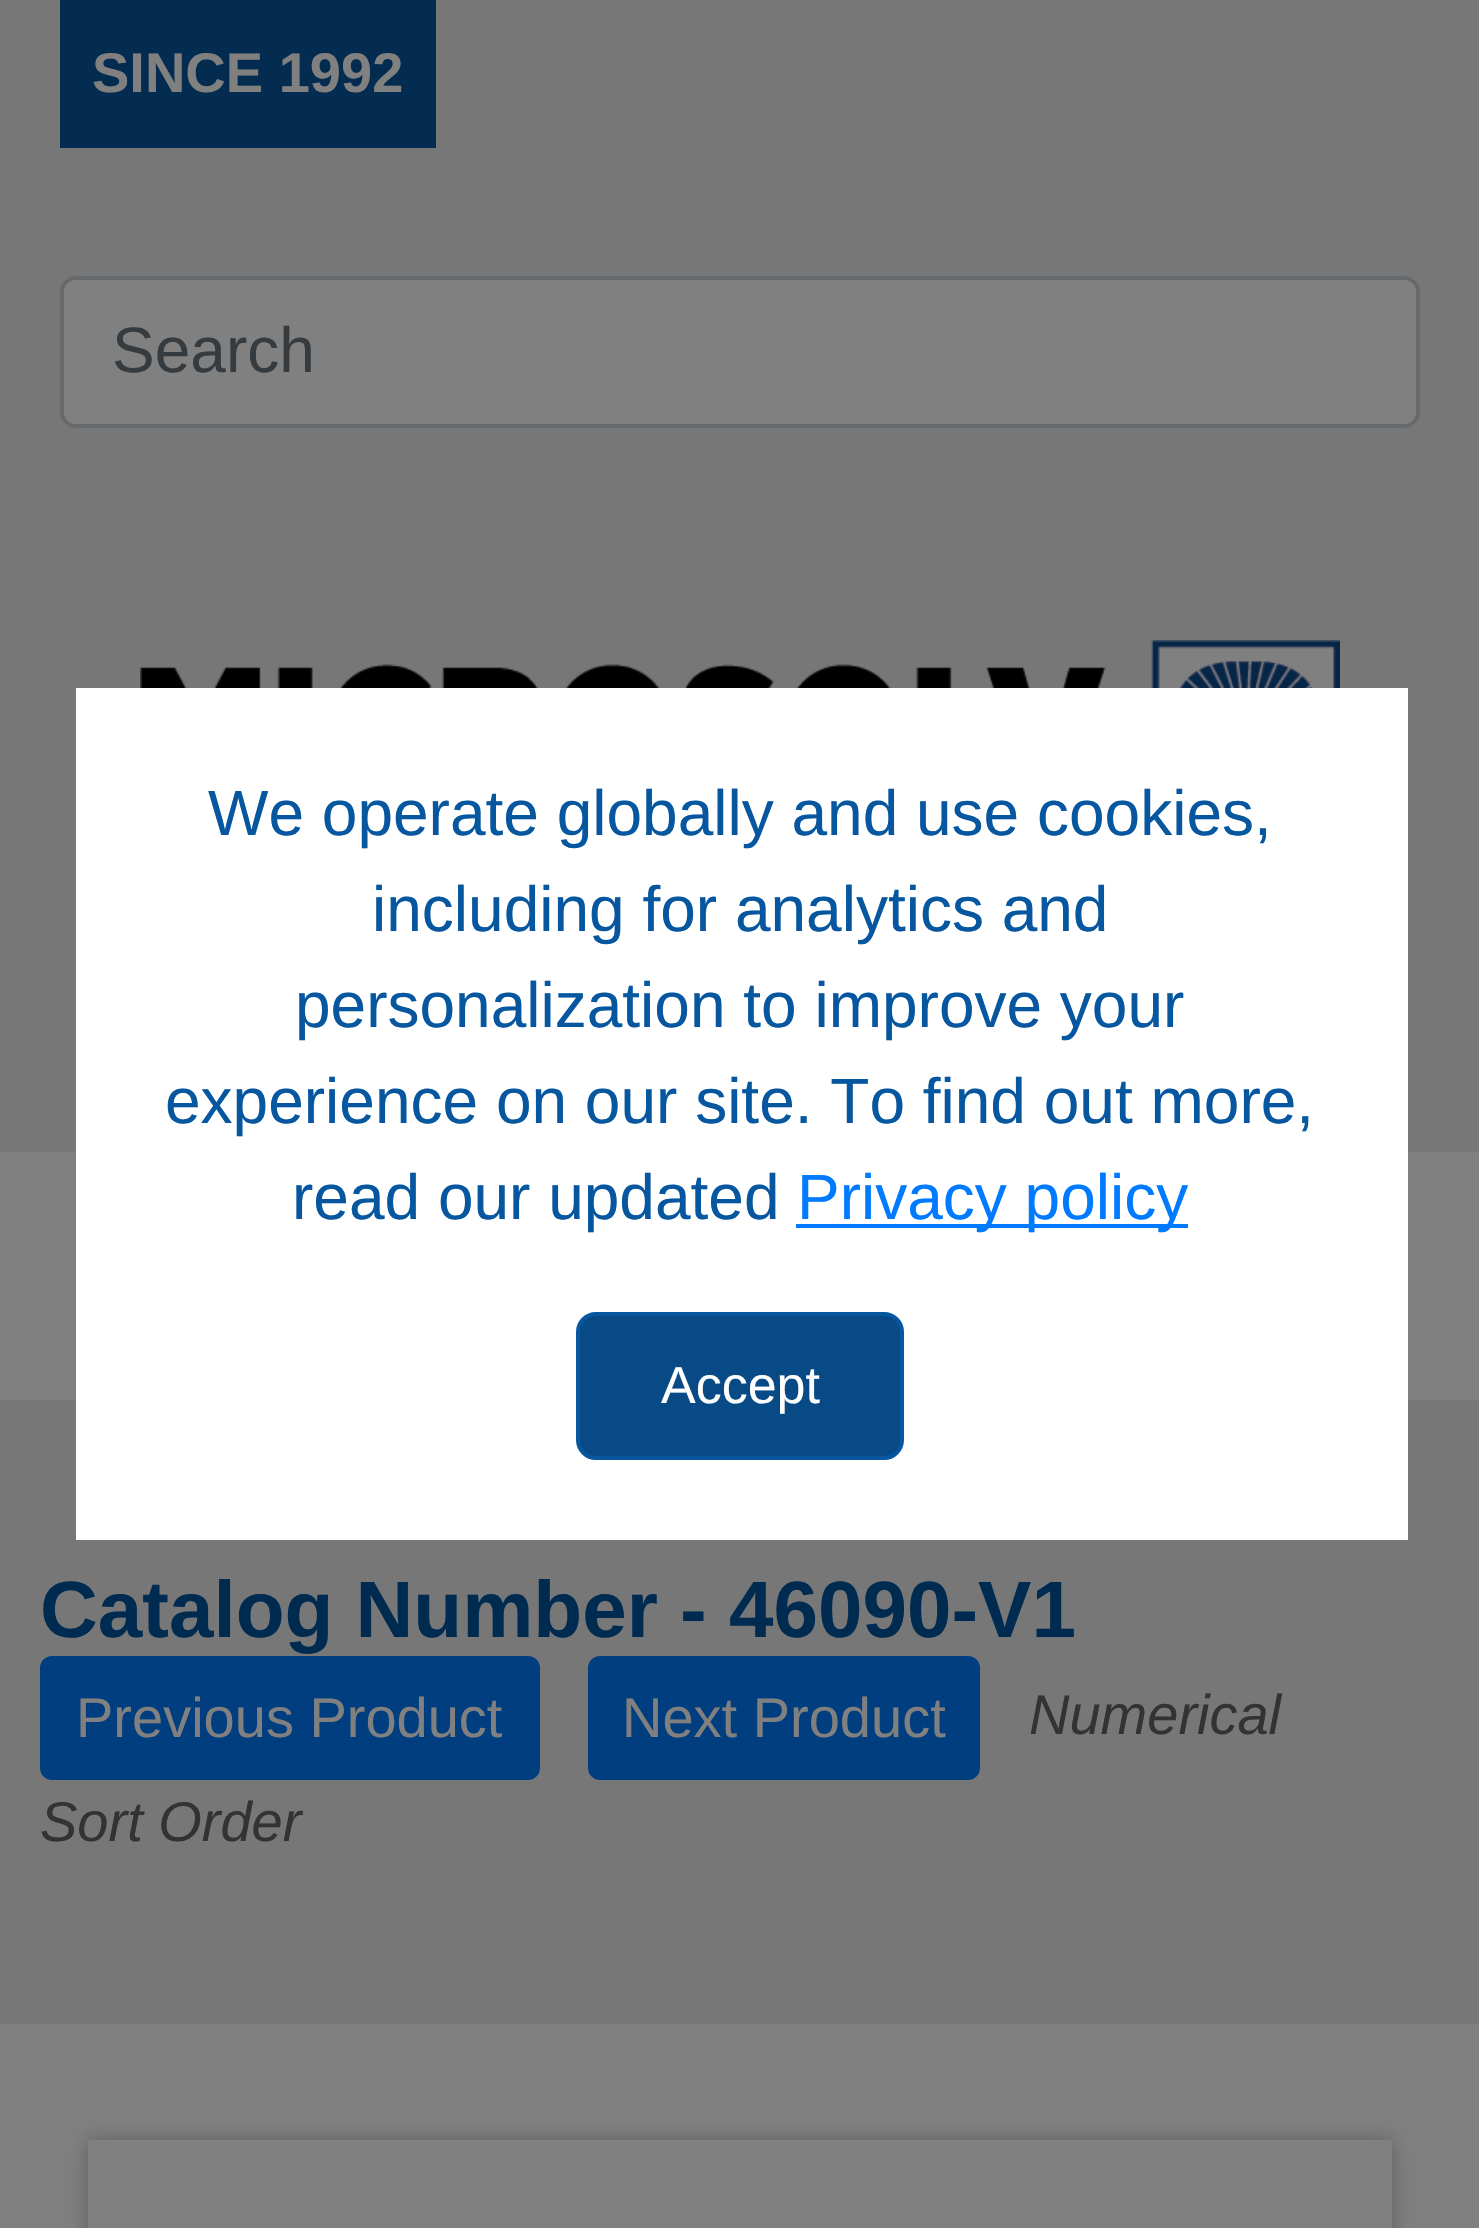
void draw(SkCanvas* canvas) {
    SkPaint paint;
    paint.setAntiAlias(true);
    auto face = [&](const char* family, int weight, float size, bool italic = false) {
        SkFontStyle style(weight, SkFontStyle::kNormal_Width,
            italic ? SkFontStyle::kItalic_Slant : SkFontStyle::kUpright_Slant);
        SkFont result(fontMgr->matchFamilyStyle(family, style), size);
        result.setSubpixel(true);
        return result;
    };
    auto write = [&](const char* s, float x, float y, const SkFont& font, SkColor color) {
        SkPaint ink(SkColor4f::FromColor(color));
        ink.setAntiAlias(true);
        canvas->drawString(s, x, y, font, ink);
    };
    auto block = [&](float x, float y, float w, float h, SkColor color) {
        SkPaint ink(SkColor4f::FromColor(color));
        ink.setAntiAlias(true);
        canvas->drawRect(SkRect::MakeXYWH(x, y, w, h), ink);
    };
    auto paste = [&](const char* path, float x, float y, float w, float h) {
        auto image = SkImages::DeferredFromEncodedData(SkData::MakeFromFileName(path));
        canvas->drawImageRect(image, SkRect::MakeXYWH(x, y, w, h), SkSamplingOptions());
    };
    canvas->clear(SkColorSetRGB(128, 128, 128));
    block(0, 0, 1479, 1152, SkColorSetRGB(119, 119, 119));
    block(60, 0, 376, 148, SkColorSetRGB(3, 44, 80));
    auto kFont1 = face("Liberation Sans", 700, 56);
    write("SINCE 1992", 92, 92, kFont1, SkColorSetRGB(128, 128, 128));
    paint.setColor(SkColorSetRGB(128, 128, 128));
    canvas->drawRoundRect(SkRect::MakeXYWH(62, 278, 1356, 148), 14, 14, paint);
    paint.setStyle(SkPaint::kStroke_Style);
    paint.setStrokeWidth(4);
    paint.setColor(SkColorSetRGB(103, 106, 109));
    canvas->drawRoundRect(SkRect::MakeXYWH(62, 278, 1356, 148), 14, 14, paint);
    auto kFont2 = face("Liberation Sans", 400, 64);
    write("Search", 112, 372, kFont2, SkColorSetRGB(54, 59, 63));
    paste("pic1.png", 140, 640, 1200, 48);
    block(0, 1400, 1479, 624, SkColorSetRGB(119, 119, 119));
    block(76, 688, 1332, 852, SK_ColorWHITE);
    write("We operate globally and use cookies,", 208, 835, kFont2, SkColorSetRGB(6, 87, 159));
    write("including for analytics and", 372, 931, kFont2, SkColorSetRGB(6, 87, 159));
    write("personalization to improve your", 295, 1027, kFont2, SkColorSetRGB(6, 87, 159));
    write("experience on our site. To find out more,", 165, 1123, kFont2, SkColorSetRGB(6, 87, 159));
    write("read our updated", 292, 1219, kFont2, SkColorSetRGB(6, 87, 159));
    block(796, 1224, 392, 4, SkColorSetRGB(0, 123, 255));
    write("Privacy policy", 797, 1219, kFont2, SkColorSetRGB(0, 123, 255));
    paint.setStyle(SkPaint::kFill_Style);
    paint.setColor(SkColorSetRGB(7, 74, 133));
    canvas->drawRoundRect(SkRect::MakeXYWH(578, 1314, 324, 144), 18, 18, paint);
    paint.setStyle(SkPaint::kStroke_Style);
    paint.setColor(SkColorSetRGB(6, 87, 159));
    canvas->drawRoundRect(SkRect::MakeXYWH(578, 1314, 324, 144), 18, 18, paint);
    auto kFont3 = face("Liberation Sans", 400, 52);
    write("Accept", 661, 1403, kFont3, SK_ColorWHITE);
    auto kFont4 = face("Liberation Sans", 700, 80);
    write("Catalog Number - 46090-V1", 40, 1637, kFont4, SkColorSetRGB(0, 43, 81));
    paint.setStyle(SkPaint::kFill_Style);
    paint.setColor(SkColorSetRGB(0, 62, 128));
    canvas->drawRoundRect(SkRect::MakeXYWH(42, 1658, 496, 120), 10, 10, paint);
    paint.setStyle(SkPaint::kStroke_Style);
    canvas->drawRoundRect(SkRect::MakeXYWH(42, 1658, 496, 120), 10, 10, paint);
    auto kFont5 = face("Liberation Sans", 400, 56);
    write("Previous Product", 76, 1737, kFont5, SkColorSetRGB(128, 128, 128));
    paint.setStyle(SkPaint::kFill_Style);
    canvas->drawRoundRect(SkRect::MakeXYWH(590, 1658, 388, 120), 10, 10, paint);
    paint.setStyle(SkPaint::kStroke_Style);
    canvas->drawRoundRect(SkRect::MakeXYWH(590, 1658, 388, 120), 10, 10, paint);
    write("Next Product", 622, 1737, kFont5, SkColorSetRGB(128, 128, 128));
    auto kFont6 = face("Liberation Sans", 400, 56, true);
    write("Numerical", 1029, 1734, kFont6, SkColorSetRGB(51, 51, 51));
    write("Sort Order", 40, 1841, kFont6, SkColorSetRGB(51, 51, 51));
    canvas->save();
    canvas->clipPath(SkPathBuilder(SkPathFillType::kEvenOdd).moveTo(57, 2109).lineTo(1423, 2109).lineTo(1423, 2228).lineTo(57, 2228).close().moveTo(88, 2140).lineTo(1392, 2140).lineTo(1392, 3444).lineTo(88, 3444).close().detach(), true);
    paint.setStyle(SkPaint::kFill_Style);
    paint.setColor(SkColorSetRGB(94, 94, 94));
    paint.setMaskFilter(SkMaskFilter::MakeBlur(kNormal_SkBlurStyle, 10));
    canvas->drawRect(SkRect::MakeXYWH(88, 2140, 1304, 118), paint);
    paint.setMaskFilter(nullptr);
    canvas->restore();
}
